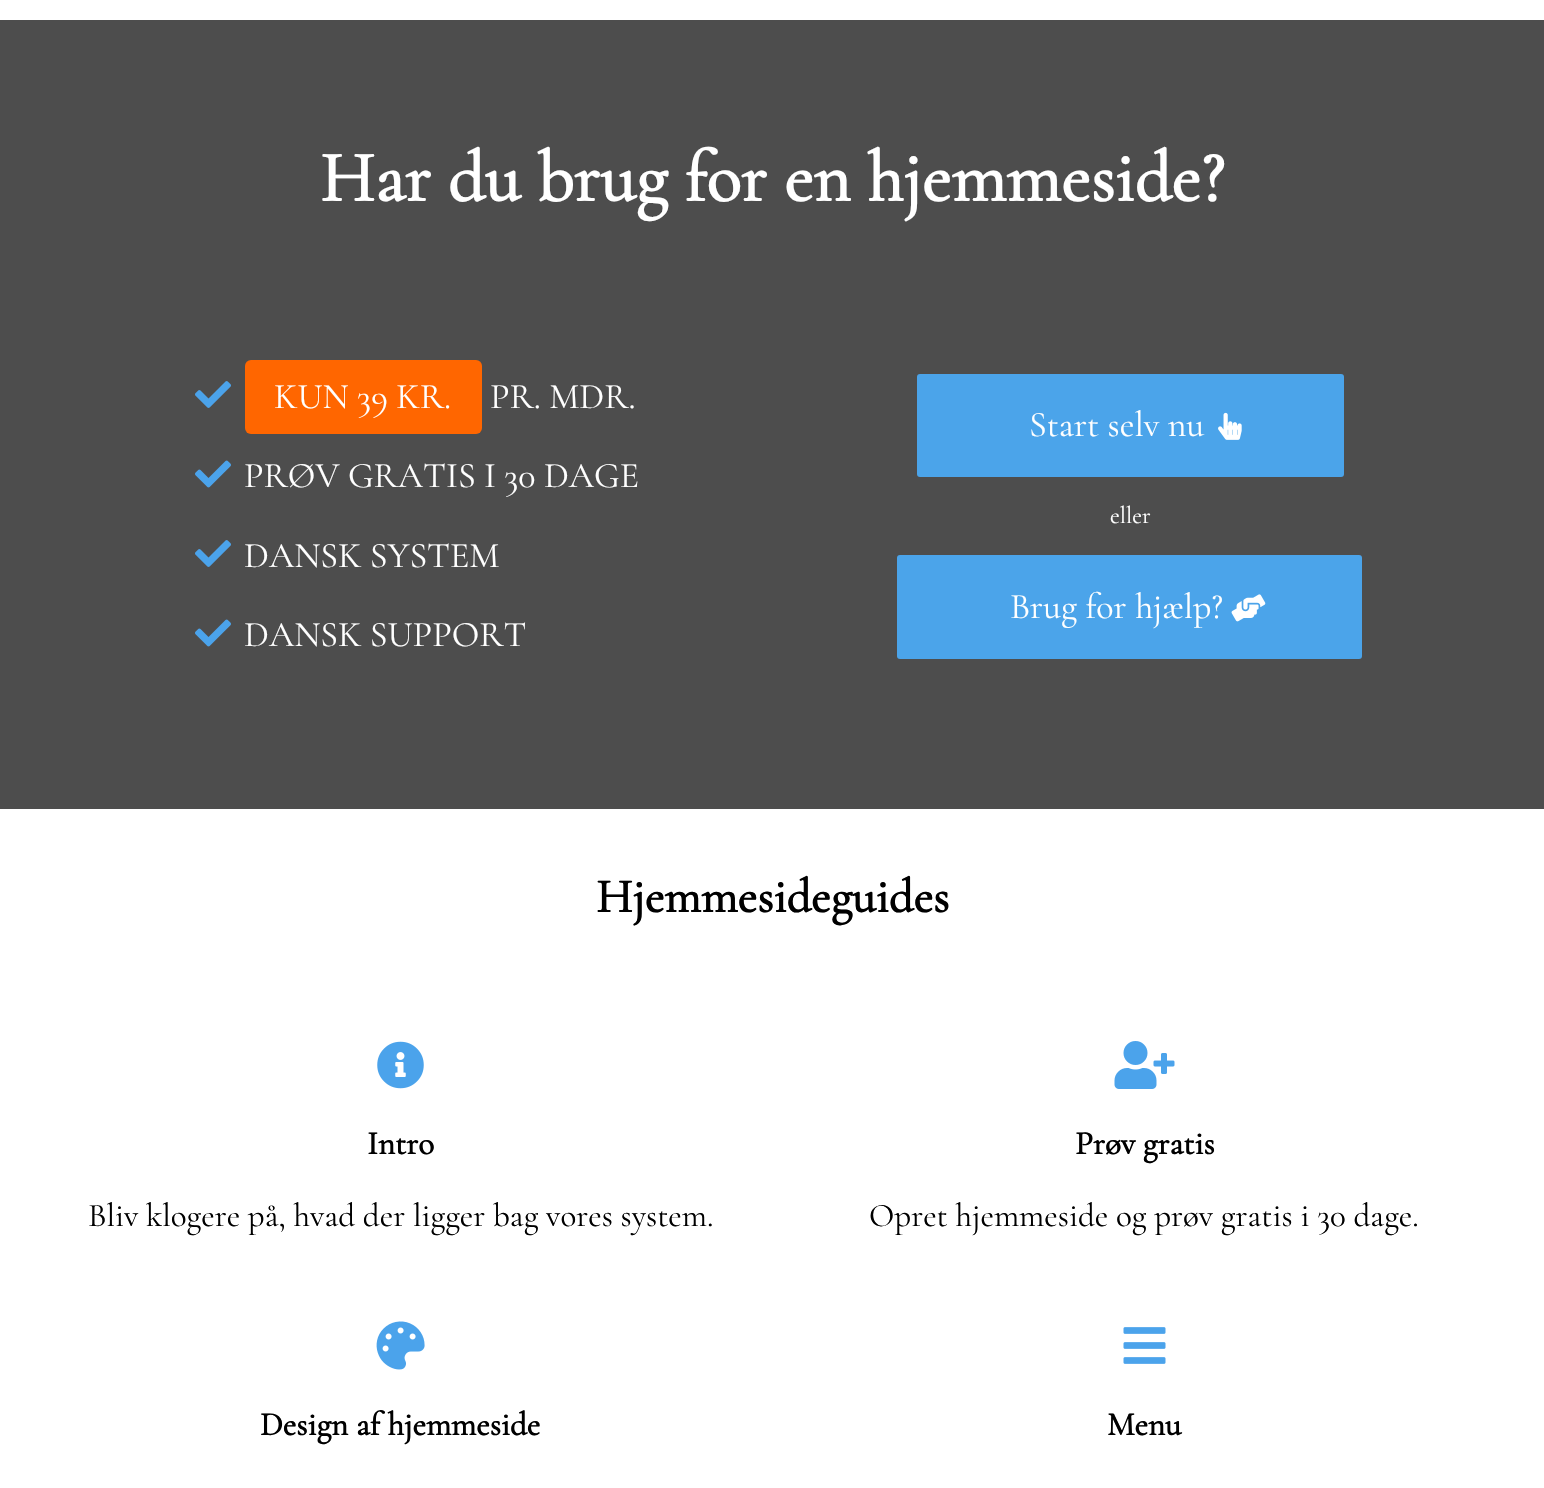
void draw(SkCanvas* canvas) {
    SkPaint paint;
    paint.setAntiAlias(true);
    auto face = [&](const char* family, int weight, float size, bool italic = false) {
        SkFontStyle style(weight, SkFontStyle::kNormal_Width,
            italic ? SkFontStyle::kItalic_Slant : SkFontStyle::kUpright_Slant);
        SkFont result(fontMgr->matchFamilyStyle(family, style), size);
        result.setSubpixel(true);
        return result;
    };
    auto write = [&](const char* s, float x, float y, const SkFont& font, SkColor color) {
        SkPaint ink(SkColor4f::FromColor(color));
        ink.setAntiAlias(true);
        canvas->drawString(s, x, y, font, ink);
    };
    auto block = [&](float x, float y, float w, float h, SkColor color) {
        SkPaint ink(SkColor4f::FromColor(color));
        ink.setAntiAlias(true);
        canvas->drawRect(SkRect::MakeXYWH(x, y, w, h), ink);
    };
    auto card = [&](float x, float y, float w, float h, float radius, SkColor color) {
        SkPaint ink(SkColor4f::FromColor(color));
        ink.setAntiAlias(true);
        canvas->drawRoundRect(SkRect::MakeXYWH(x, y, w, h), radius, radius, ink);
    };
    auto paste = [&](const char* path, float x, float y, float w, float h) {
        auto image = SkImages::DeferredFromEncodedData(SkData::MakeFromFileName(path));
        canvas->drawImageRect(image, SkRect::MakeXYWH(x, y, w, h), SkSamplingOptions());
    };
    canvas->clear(SK_ColorWHITE);
    block(0, 20, 1544, 789, SkColorSetRGB(77, 77, 77));
    auto kFont1 = face("Cormorant Garamond", 700, 72);
    write("Har du brug for en hjemmeside?", 320, 201, kFont1, SK_ColorWHITE);
    paste("pic1.png", 195, 381, 36, 27);
    card(245, 360, 237, 74, 6, SkColorSetRGB(255, 102, 0));
    auto kFont2 = face("Cormorant Garamond", 300, 36);
    write("KUN 39 KR.", 274, 408, kFont2, SK_ColorWHITE);
    write("PR. MDR.", 490, 408, kFont2, SK_ColorWHITE);
    paste("pic2.png", 195, 460, 36, 28);
    write("PRØV GRATIS I 30 DAGE", 244, 487, kFont2, SK_ColorWHITE);
    paste("pic1.png", 195, 540, 36, 27);
    write("DANSK SYSTEM", 244, 567, kFont2, SK_ColorWHITE);
    paste("pic2.png", 195, 619, 36, 28);
    write("DANSK SUPPORT", 244, 646, kFont2, SK_ColorWHITE);
    card(917, 374, 427, 103, 3, SkColorSetRGB(75, 164, 234));
    write("Start selv nu", 1029, 436, kFont2, SK_ColorWHITE);
    paste("pic3.png", 1218, 412, 24, 28);
    auto kFont3 = face("Cormorant Garamond", 300, 24);
    write("eller", 1110, 523, kFont3, SK_ColorWHITE);
    card(897, 555, 465, 104, 3, SkColorSetRGB(75, 164, 234));
    write("Brug for hjælp?", 1010, 618, kFont2, SK_ColorWHITE);
    paste("pic4.png", 1231, 594, 35, 28);
    auto kFont4 = face("Cormorant Garamond", 700, 48);
    write("Hjemmesideguides", 596, 912, kFont4, SK_ColorBLACK);
    paste("pic5.png", 377, 1041, 47, 48);
    auto kFont5 = face("Cormorant Garamond", 700, 33);
    write("Intro", 367, 1154, kFont5, SK_ColorBLACK);
    auto kFont6 = face("Cormorant Garamond", 300, 33);
    write("Bliv klogere på, hvad der ligger bag vores system.", 88, 1226, kFont6, SK_ColorBLACK);
    paste("pic6.png", 1114, 1041, 61, 48);
    write("Prøv gratis", 1075, 1154, kFont5, SK_ColorBLACK);
    write("Opret hjemmeside og prøv gratis i 30 dage.", 869, 1226, kFont6, SK_ColorBLACK);
    paste("pic7.png", 376, 1321, 49, 49);
    write("Design af hjemmeside", 260, 1435, kFont5, SK_ColorBLACK);
    paste("pic8.png", 1123, 1327, 43, 37);
    write("Menu", 1107, 1435, kFont5, SK_ColorBLACK);
}
